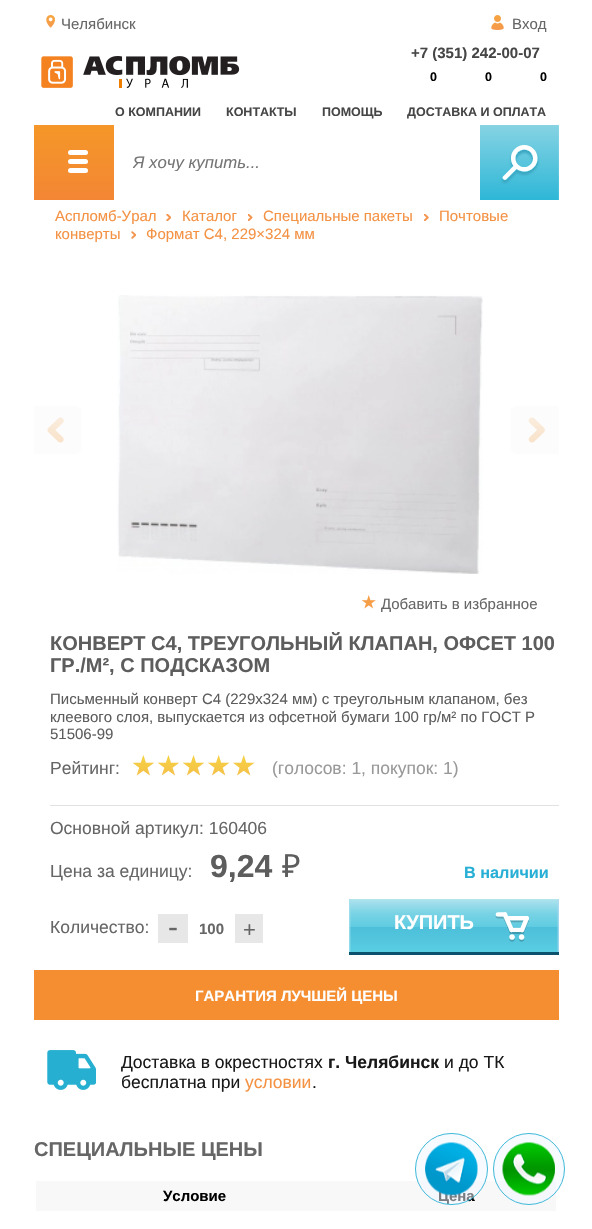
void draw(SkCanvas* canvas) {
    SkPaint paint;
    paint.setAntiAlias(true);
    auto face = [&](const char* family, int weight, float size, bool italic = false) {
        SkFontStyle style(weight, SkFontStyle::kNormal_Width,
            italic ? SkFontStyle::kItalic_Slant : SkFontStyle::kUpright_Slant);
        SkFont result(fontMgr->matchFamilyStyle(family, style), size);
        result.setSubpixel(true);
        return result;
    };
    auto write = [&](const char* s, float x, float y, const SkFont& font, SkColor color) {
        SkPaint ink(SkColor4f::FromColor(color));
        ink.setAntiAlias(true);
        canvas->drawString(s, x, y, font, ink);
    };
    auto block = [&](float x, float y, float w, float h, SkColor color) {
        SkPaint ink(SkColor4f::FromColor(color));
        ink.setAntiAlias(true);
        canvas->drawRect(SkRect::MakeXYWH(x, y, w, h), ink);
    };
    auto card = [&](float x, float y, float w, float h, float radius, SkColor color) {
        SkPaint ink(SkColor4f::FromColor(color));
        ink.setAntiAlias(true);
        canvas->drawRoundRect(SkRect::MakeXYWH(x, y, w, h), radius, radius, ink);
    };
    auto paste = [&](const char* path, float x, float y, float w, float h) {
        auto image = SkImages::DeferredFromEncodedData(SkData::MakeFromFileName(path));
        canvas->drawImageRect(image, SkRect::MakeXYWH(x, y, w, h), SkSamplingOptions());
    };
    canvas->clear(SK_ColorWHITE);
    paste("pic1.png", 46, 15, 9, 13);
    auto kFont1 = face("Liberation Sans", 400, 15);
    write("Челябинск", 61, 29, kFont1, SkColorSetRGB(102, 102, 102));
    paste("pic2.png", 491, 15, 13, 15);
    write("Вход", 512, 29, kFont1, SkColorSetRGB(102, 102, 102));
    auto kFont2 = face("Liberation Sans", 700, 15);
    write("+7 (351) 242-00-07", 411, 58, kFont2, SkColorSetRGB(70, 70, 70));
    paste("pic3.png", 41, 56, 199, 32);
    auto kFont3 = face("Liberation Sans", 700, 12.5f);
    write("О КОМПАНИИ", 115, 116, kFont3, SkColorSetRGB(70, 70, 70));
    write("КОНТАКТЫ", 226, 116, kFont3, SkColorSetRGB(70, 70, 70));
    write("ПОМОЩЬ", 322, 116, kFont3, SkColorSetRGB(70, 70, 70));
    write("ДОСТАВКА И ОПЛАТА", 407, 116, kFont3, SkColorSetRGB(70, 70, 70));
    write("0", 430, 81, kFont3, SK_ColorBLACK);
    write("0", 485, 81, kFont3, SK_ColorBLACK);
    write("0", 540, 81, kFont3, SK_ColorBLACK);
    {
        const SkColor colors[] = {SkColorSetRGB(245, 151, 40), SkColorSetRGB(243, 134, 53)};
        const float stops[] = {0, 1};
        const SkPoint ends[] = {{296, 125}, {296, 200}};
        paint.setShader(SkGradientShader::MakeLinear(ends, colors, stops, 2, SkTileMode::kClamp));
        paint.setAlpha(255);
    }
    canvas->drawRect(SkRect::MakeXYWH(34, 125, 80, 75), paint);
    card(68, 150, 20, 5, 2.5f, SK_ColorWHITE);
    card(68, 159, 20, 5, 2.5f, SK_ColorWHITE);
    card(68, 168, 20, 5, 2.5f, SK_ColorWHITE);
    canvas->save();
    canvas->clipRect(SkRect::MakeXYWH(133, 153, 378, 18));
    auto kFont4 = face("Liberation Sans", 400, 16.75f, true);
    write("Я хочу купить...", 133, 168, kFont4, SkColorSetRGB(117, 117, 117));
    canvas->restore();
    paste("pic4.png", 480, 125, 79, 75);
    write("Аспломб-Урал", 55, 221, kFont1, SkColorSetRGB(244, 146, 68));
    paste("pic5.png", 166, 214, 5, 7);
    write("Каталог", 182, 221, kFont1, SkColorSetRGB(244, 146, 68));
    paste("pic6.png", 248, 214, 5, 7);
    write("Специальные пакеты", 263, 221, kFont1, SkColorSetRGB(244, 146, 68));
    paste("pic7.png", 424, 214, 5, 7);
    write("Почтовые", 439, 221, kFont1, SkColorSetRGB(244, 146, 68));
    write("конверты", 55, 239, kFont1, SkColorSetRGB(244, 146, 68));
    paste("pic8.png", 131, 231, 5, 8);
    write("Формат C4, 229×324 мм", 146, 239, kFont1, SkColorSetRGB(244, 146, 68));
    paste("pic9.png", 117, 295, 366, 279);
    paint.setShader(nullptr);
    paint.setColor(SkColorSetRGB(252, 252, 252));
    canvas->drawPath(SkPathBuilder().moveTo(34, 406).lineTo(75, 406).cubicTo(78.5f, 406, 81, 408.5f, 81, 412).lineTo(81, 448).cubicTo(81, 451.5f, 78.5f, 454, 75, 454).lineTo(34, 454).close().detach(), paint);
    paste("pic10.png", 47, 417, 17, 26);
    canvas->drawPath(SkPathBuilder().moveTo(517, 406).lineTo(559, 406).lineTo(559, 454).lineTo(517, 454).cubicTo(513.5f, 454, 511, 451.5f, 511, 448).lineTo(511, 412).cubicTo(511, 408.5f, 513.5f, 406, 517, 406).close().detach(), paint);
    paste("pic11.png", 528, 417, 17, 26);
    paste("pic12.png", 361, 595, 15, 14);
    write("Добавить в избранное", 381, 609, kFont1, SkColorSetRGB(102, 102, 102));
    auto kFont5 = face("Liberation Sans", 700, 20);
    write("КОНВЕРТ С4, ТРЕУГОЛЬНЫЙ КЛАПАН, ОФСЕТ 100", 50, 650, kFont5, SkColorSetRGB(93, 93, 93));
    write("ГР./М², С ПОДСКАЗОМ", 50, 672, kFont5, SkColorSetRGB(93, 93, 93));
    write("Письменный конверт C4 (229х324 мм) с треугольным клапаном, без", 50, 704, kFont1, SkColorSetRGB(93, 93, 93));
    write("клеевого слоя, выпускается из офсетной бумаги 100 гр/м² по ГОСТ Р", 50, 722, kFont1, SkColorSetRGB(93, 93, 93));
    write("51506-99", 50, 739, kFont1, SkColorSetRGB(93, 93, 93));
    auto kFont6 = face("Liberation Sans", 400, 17.5f);
    write("Рейтинг:", 50, 774, kFont6, SkColorSetRGB(102, 102, 102));
    paste("pic13.png", 133, 755, 121, 20);
    paste("pic14.png", 133, 755, 122, 21);
    write("(голосов: 1, покупок: 1)", 272, 774, kFont6, SkColorSetRGB(153, 153, 153));
    block(50, 805, 509, 1, SkColorSetRGB(226, 226, 226));
    write("Основной артикул: 160406", 50, 834, kFont6, SkColorSetRGB(102, 102, 102));
    write("Цена за единицу:", 50, 877, kFont6, SkColorSetRGB(102, 102, 102));
    auto kFont7 = face("Liberation Sans", 700, 32);
    write("9,24", 210, 877, kFont7, SkColorSetRGB(93, 93, 93));
    auto kFont8 = face("Noto Sans", 400, 32);
    write("₽", 282, 877, kFont8, SkColorSetRGB(93, 93, 93));
    auto kFont9 = face("Liberation Sans", 700, 16.25f);
    write("В наличии", 464, 878, kFont9, SkColorSetRGB(39, 175, 213));
    write("Количество:", 50, 933, kFont6, SkColorSetRGB(102, 102, 102));
    block(158, 914, 105, 29, SkColorSetRGB(231, 231, 231));
    auto kFont10 = face("Liberation Sans", 400, 30);
    write("-", 168, 937, kFont10, SkColorSetRGB(102, 102, 102));
    block(188, 914, 47, 29, SK_ColorWHITE);
    write("100", 199, 934, kFont2, SkColorSetRGB(102, 102, 102));
    auto kFont11 = face("Liberation Sans", 400, 22);
    write("+", 243, 937, kFont11, SkColorSetRGB(102, 102, 102));
    {
        const SkColor colors[] = {SkColorSetRGB(176, 229, 237), SkColorSetRGB(171, 225, 237), SkColorSetRGB(122, 211, 229), SkColorSetRGB(95, 204, 225), SkColorSetRGB(77, 191, 218), SkColorSetRGB(89, 205, 226), SkColorSetRGB(144, 218, 231)};
        const float stops[] = {0.01f, 0.02f, 0.25f, 0.5f, 0.5f, 0.94f, 0.95f};
        const SkPoint ends[] = {{454, 899}, {454, 955}};
        paint.setShader(SkGradientShader::MakeLinear(ends, colors, stops, 7, SkTileMode::kClamp));
        paint.setAlpha(255);
    }
    canvas->drawRect(SkRect::MakeXYWH(349, 899, 210, 53), paint);
    {
        const SkColor colors[] = {SkColorSetRGB(164, 223, 237), SkColorSetARGB(0, 164, 223, 237), SkColorSetARGB(0, 176, 218, 239), SkColorSetRGB(176, 218, 239)};
        const float stops[] = {0, 0.01f, 0.99f, 1};
        const SkPoint ends[] = {{349, 927}, {559, 927}};
        paint.setShader(SkGradientShader::MakeLinear(ends, colors, stops, 4, SkTileMode::kClamp));
        paint.setAlpha(255);
    }
    canvas->drawRect(SkRect::MakeXYWH(349, 899, 210, 53), paint);
    {
        const SkColor colors[] = {SkColorSetARGB(0, 0, 0, 0), SkColorSetARGB(0, 12, 82, 108), SkColorSetRGB(12, 82, 108)};
        const float stops[] = {0, 0.95f, 0.95f};
        const SkPoint ends[] = {{454, 899}, {454, 955}};
        paint.setShader(SkGradientShader::MakeLinear(ends, colors, stops, 3, SkTileMode::kClamp));
        paint.setAlpha(255);
    }
    canvas->drawRect(SkRect::MakeXYWH(349, 952, 210, 3), paint);
    write("КУПИТЬ", 394, 929, kFont5, SK_ColorWHITE);
    paste("pic15.png", 495, 912, 34, 30);
    block(34, 970, 525, 50, SkColorSetRGB(244, 142, 48));
    write("ГАРАНТИЯ ЛУЧШЕЙ ЦЕНЫ", 195, 1001, kFont2, SK_ColorWHITE);
    paste("pic16.png", 47, 1050, 49, 40);
    write("Доставка в окрестностях", 121, 1068, kFont6, SkColorSetRGB(25, 25, 25));
    auto kFont12 = face("Liberation Sans", 700, 17.5f);
    write("г. Челябинск", 328, 1068, kFont12, SkColorSetRGB(25, 25, 25));
    write("и до ТК", 444, 1068, kFont6, SkColorSetRGB(25, 25, 25));
    write("бесплатна при", 121, 1088, kFont6, SkColorSetRGB(25, 25, 25));
    write("условии", 245, 1088, kFont6, SkColorSetRGB(244, 146, 68));
    write(".", 312, 1088, kFont6, SkColorSetRGB(25, 25, 25));
    write("СПЕЦИАЛЬНЫЕ ЦЕНЫ", 34, 1156, kFont5, SkColorSetRGB(102, 102, 102));
    block(36, 1181, 520, 30, SkColorSetRGB(248, 248, 248));
    write("Условие", 163, 1201, kFont2, SK_ColorBLACK);
    write("Цена", 438, 1201, kFont2, SK_ColorBLACK);
    paint.setShader(nullptr);
    paint.setColor(SkColorSetARGB(128, 240, 248, 255));
    canvas->drawRoundRect(SkRect::MakeXYWH(415.5f, 1133.5f, 72, 71), 35.5f, 35.5f, paint);
    paint.setStyle(SkPaint::kStroke_Style);
    paint.setStrokeWidth(1);
    paint.setColor(SkColorSetRGB(61, 184, 217));
    canvas->drawRoundRect(SkRect::MakeXYWH(415.5f, 1133.5f, 72, 71), 35.5f, 35.5f, paint);
    paste("pic17.png", 425, 1142, 53, 54);
    paint.setStyle(SkPaint::kFill_Style);
    paint.setColor(SkColorSetARGB(128, 240, 248, 255));
    canvas->drawCircle(529, 1169, 35.5f, paint);
    paint.setStyle(SkPaint::kStroke_Style);
    paint.setColor(SkColorSetRGB(61, 184, 217));
    canvas->drawCircle(529, 1169, 35.5f, paint);
    paste("pic18.png", 502, 1142, 53, 54);
}
